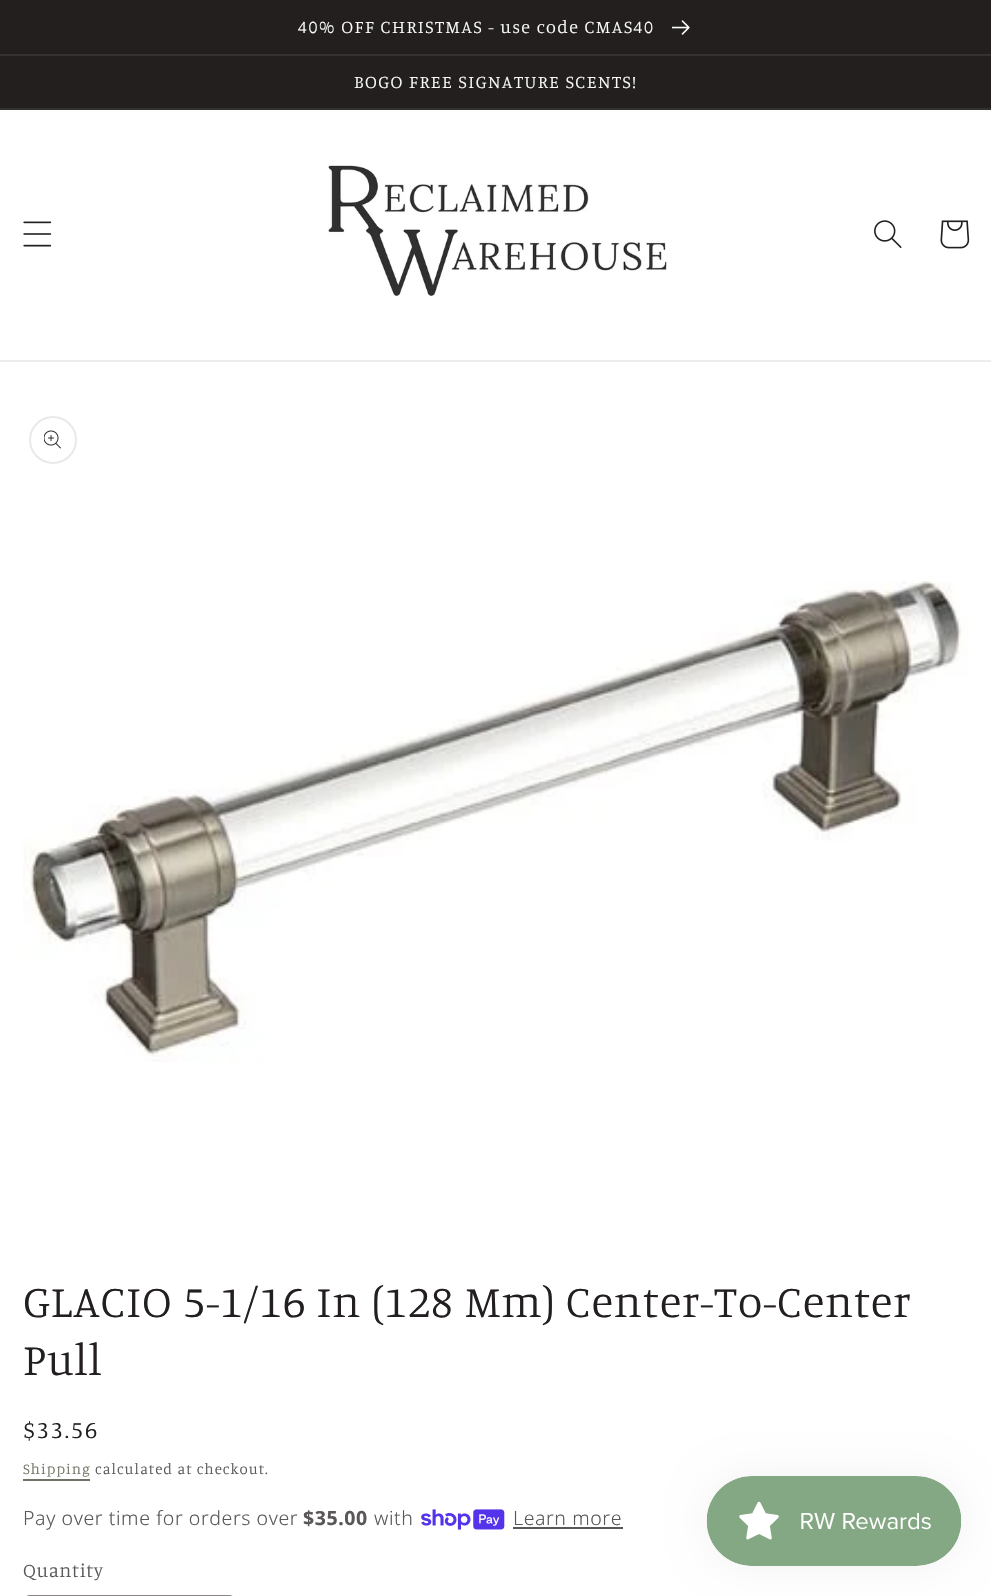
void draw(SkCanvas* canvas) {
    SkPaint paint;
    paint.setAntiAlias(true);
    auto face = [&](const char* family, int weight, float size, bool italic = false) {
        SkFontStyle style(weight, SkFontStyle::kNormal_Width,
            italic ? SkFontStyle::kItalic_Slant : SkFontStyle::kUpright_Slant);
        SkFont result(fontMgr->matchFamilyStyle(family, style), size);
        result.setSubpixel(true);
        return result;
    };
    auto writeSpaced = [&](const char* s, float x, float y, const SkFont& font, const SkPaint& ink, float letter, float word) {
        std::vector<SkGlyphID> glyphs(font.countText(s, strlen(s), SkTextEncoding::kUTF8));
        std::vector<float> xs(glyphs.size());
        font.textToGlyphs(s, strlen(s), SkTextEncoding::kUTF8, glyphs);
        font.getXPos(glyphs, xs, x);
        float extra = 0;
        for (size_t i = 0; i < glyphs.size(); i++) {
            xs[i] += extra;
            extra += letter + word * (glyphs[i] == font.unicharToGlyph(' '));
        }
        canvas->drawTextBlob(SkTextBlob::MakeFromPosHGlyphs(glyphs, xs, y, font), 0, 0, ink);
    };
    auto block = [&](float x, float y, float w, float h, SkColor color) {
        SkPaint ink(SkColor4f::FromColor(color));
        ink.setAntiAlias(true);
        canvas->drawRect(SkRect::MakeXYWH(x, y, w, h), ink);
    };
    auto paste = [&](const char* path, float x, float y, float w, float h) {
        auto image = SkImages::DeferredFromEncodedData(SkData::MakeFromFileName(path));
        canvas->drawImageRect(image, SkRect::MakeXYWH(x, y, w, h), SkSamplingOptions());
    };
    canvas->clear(SK_ColorWHITE);
    block(0, 0, 991, 54, SkColorSetRGB(35, 31, 31));
    block(0, 54, 991, 2, SkColorSetRGB(52, 49, 49));
    auto kFont1 = face("Manuale", 300, 18);
    paint.setColor(SkColorSetRGB(252, 252, 252));
    writeSpaced("40% OFF CHRISTMAS - use code CMAS40", 298, 33, kFont1, paint, 1.5f, 0);
    paste("pic1.png", 672, 20, 18, 15);
    block(0, 56, 991, 52, SkColorSetRGB(35, 31, 31));
    block(0, 108, 991, 2, SkColorSetRGB(52, 49, 49));
    writeSpaced("BOGO FREE SIGNATURE SCENTS!", 354, 88, kFont1, paint, 1.5f, 0);
    block(0, 360, 991, 2, SkColorSetRGB(237, 237, 237));
    paste("pic2.png", 23, 221, 29, 26);
    paste("pic3.png", 327, 164, 340, 132);
    paste("pic4.png", 874, 220, 28, 28);
    paste("pic5.png", 940, 220, 30, 29);
    paint.setStyle(SkPaint::kStroke_Style);
    paint.setStrokeWidth(2);
    paint.setColor(SkColorSetRGB(233, 233, 233));
    canvas->drawCircle(53, 440, 23, paint);
    paste("pic6.png", 44, 430, 17, 19);
    paste("pic7.png", 23, 581, 946, 481);
    auto kFont2 = face("Manuale", 300, 45);
    paint.setStyle(SkPaint::kFill_Style);
    paint.setColor(SkColorSetRGB(35, 31, 31));
    writeSpaced("GLACIO 5-1/16 In (128 Mm) Center-To-Center", 23, 1317, kFont2, paint, 0.9f, 0);
    writeSpaced("Pull", 23, 1375, kFont2, paint, 0.9f, 0);
    auto kFont3 = face("Manuale", 300, 24);
    writeSpaced("$33.56", 23, 1438, kFont3, paint, 2, 0);
    auto kFont4 = face("Manuale", 300, 15);
    paint.setColor(SkColorSetRGB(110, 116, 101));
    writeSpaced("Shipping", 23, 1474, kFont4, paint, 1.05f, 0);
    block(23, 1479, 67, 2, SkColorSetRGB(110, 116, 101));
    paint.setColor(SkColorSetRGB(90, 87, 87));
    writeSpaced("calculated at checkout.", 95, 1474, kFont4, paint, 1.05f, 0);
    auto kFont5 = face("Noto Sans", 300, 19.5f);
    writeSpaced("Pay over time for orders over", 23, 1525, kFont5, paint, 0.6f, 0);
    auto kFont6 = face("Noto Sans", 700, 19.5f);
    writeSpaced("$35.00", 303, 1525, kFont6, paint, 0.6f, 0);
    writeSpaced("with", 374, 1525, kFont5, paint, 0.6f, 0);
    paste("pic8.png", 421, 1509, 84, 21);
    writeSpaced("Learn more", 513, 1525, kFont5, paint, 0.6f, 0);
    block(513, 1527, 110, 2, SkColorSetRGB(90, 87, 87));
    auto kFont7 = face("Manuale", 300, 19.5f);
    writeSpaced("Quantity", 23, 1577, kFont7, paint, 0.6f, 0);
    paint.setStyle(SkPaint::kStroke_Style);
    paint.setColor(SkColorSetRGB(134, 132, 132));
    canvas->drawRoundRect(SkRect::MakeXYWH(24, 1596, 211, 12), 10, 10, paint);
    paint.setStyle(SkPaint::kFill_Style);
    paint.setColor(SkColorSetARGB(13, 0, 0, 0));
    paint.setMaskFilter(SkMaskFilter::MakeBlur(kNormal_SkBlurStyle, 19));
    canvas->drawRoundRect(SkRect::MakeXYWH(707, 1476, 255, 90), 45, 45, paint);
    paint.setMaskFilter(nullptr);
    paste("pic9.png", 706, 1476, 256, 90);
}
